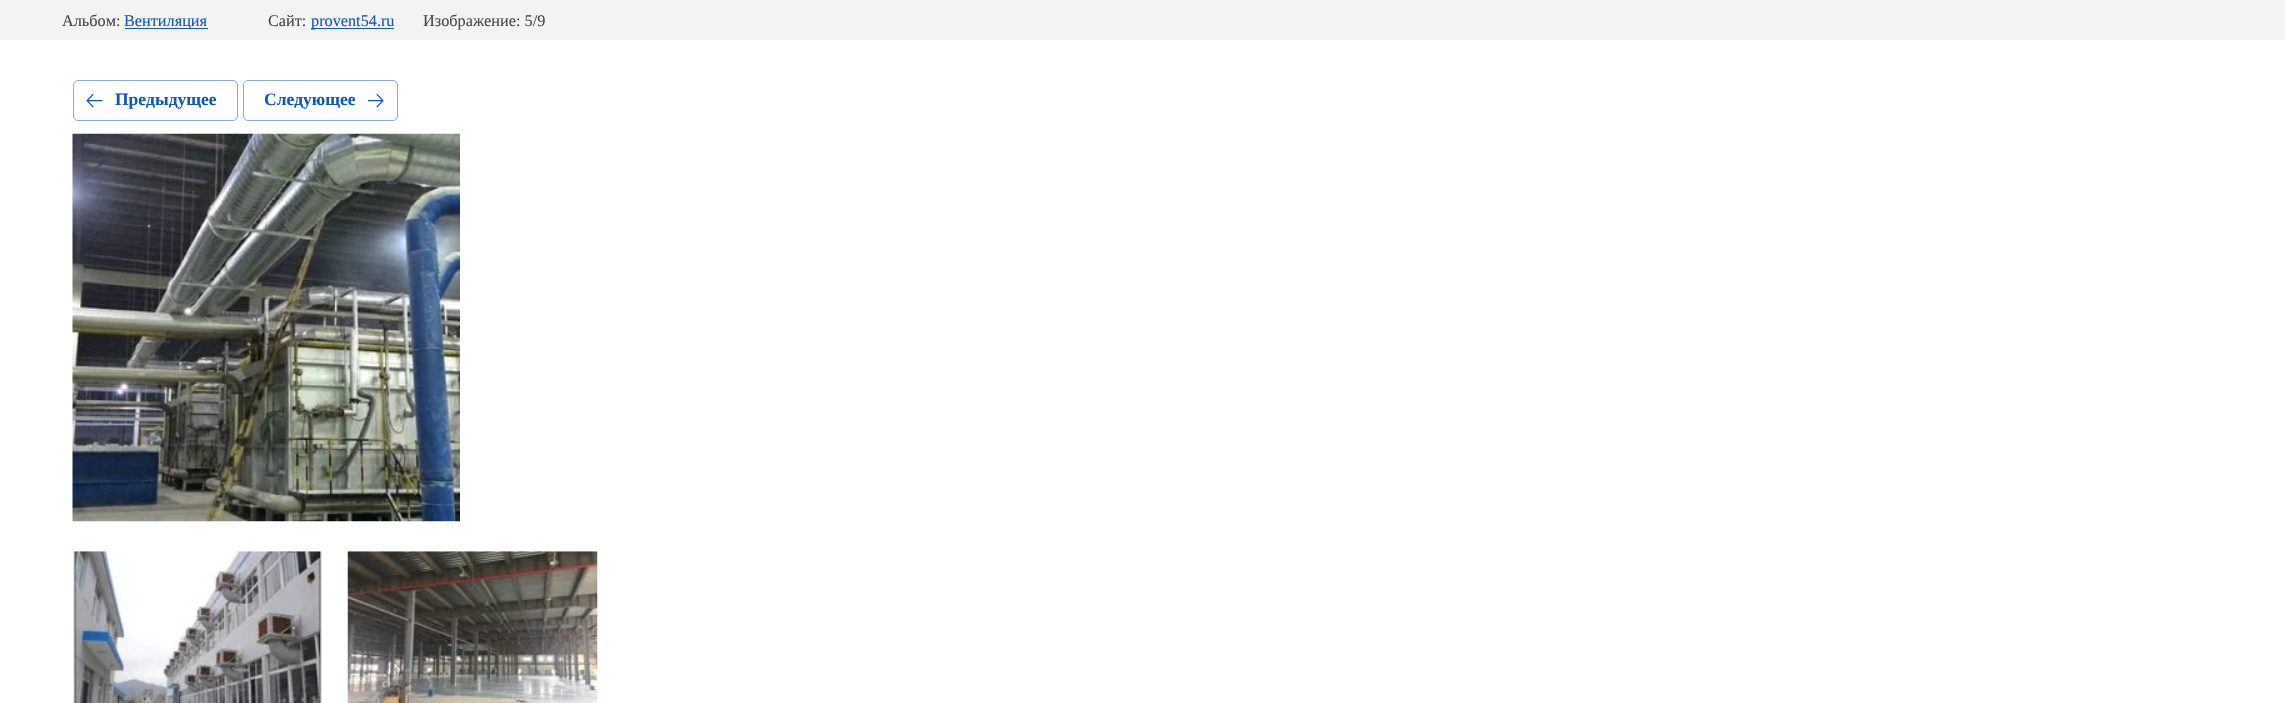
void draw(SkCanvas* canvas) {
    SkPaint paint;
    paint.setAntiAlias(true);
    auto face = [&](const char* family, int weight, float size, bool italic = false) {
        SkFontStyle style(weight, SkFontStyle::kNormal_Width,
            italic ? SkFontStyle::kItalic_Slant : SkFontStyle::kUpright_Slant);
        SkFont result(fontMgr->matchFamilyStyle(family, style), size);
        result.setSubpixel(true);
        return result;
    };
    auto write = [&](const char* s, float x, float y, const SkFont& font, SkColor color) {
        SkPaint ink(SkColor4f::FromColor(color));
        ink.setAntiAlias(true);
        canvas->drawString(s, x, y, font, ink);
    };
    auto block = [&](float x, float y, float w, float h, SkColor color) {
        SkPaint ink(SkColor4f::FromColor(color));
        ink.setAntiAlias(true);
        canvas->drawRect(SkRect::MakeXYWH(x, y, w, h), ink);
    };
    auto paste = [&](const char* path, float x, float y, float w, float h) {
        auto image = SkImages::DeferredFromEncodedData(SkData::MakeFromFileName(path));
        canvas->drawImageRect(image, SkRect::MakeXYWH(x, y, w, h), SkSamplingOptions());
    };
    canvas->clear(SK_ColorWHITE);
    block(0, 0, 2285, 40, SkColorSetRGB(243, 243, 243));
    auto kFont1 = face("Liberation Serif", 400, 16.25f);
    write("Альбом:", 62, 26, kFont1, SkColorSetRGB(72, 72, 72));
    block(125, 28, 83, 1, SkColorSetRGB(17, 85, 204));
    write("Вентиляция", 124, 26, kFont1, SkColorSetRGB(17, 85, 204));
    write("Сайт:", 268, 26, kFont1, SkColorSetRGB(72, 72, 72));
    block(311, 28, 83, 1, SkColorSetRGB(17, 85, 204));
    write("provent54.ru", 311, 26, kFont1, SkColorSetRGB(17, 85, 204));
    write("Изображение: 5/9", 423, 26, kFont1, SkColorSetRGB(72, 72, 72));
    paint.setStyle(SkPaint::kStroke_Style);
    paint.setStrokeWidth(1);
    paint.setColor(SkColorSetRGB(136, 170, 230));
    canvas->drawRoundRect(SkRect::MakeXYWH(73.5f, 80.5f, 164, 40), 4.5f, 4.5f, paint);
    paste("pic1.png", 86, 94, 17, 14);
    auto kFont2 = face("Liberation Serif", 700, 17.5f);
    write("Предыдущее", 115, 105, kFont2, SkColorSetRGB(17, 85, 204));
    canvas->drawRoundRect(SkRect::MakeXYWH(243.5f, 80.5f, 154, 40), 4.5f, 4.5f, paint);
    write("Следующее", 264, 105, kFont2, SkColorSetRGB(17, 85, 204));
    paste("pic2.png", 368, 94, 16, 14);
    paste("pic3.png", 72, 133, 388, 389);
    paste("pic4.png", 73, 551, 249, 152);
    paste("pic5.png", 347, 551, 251, 152);
}
